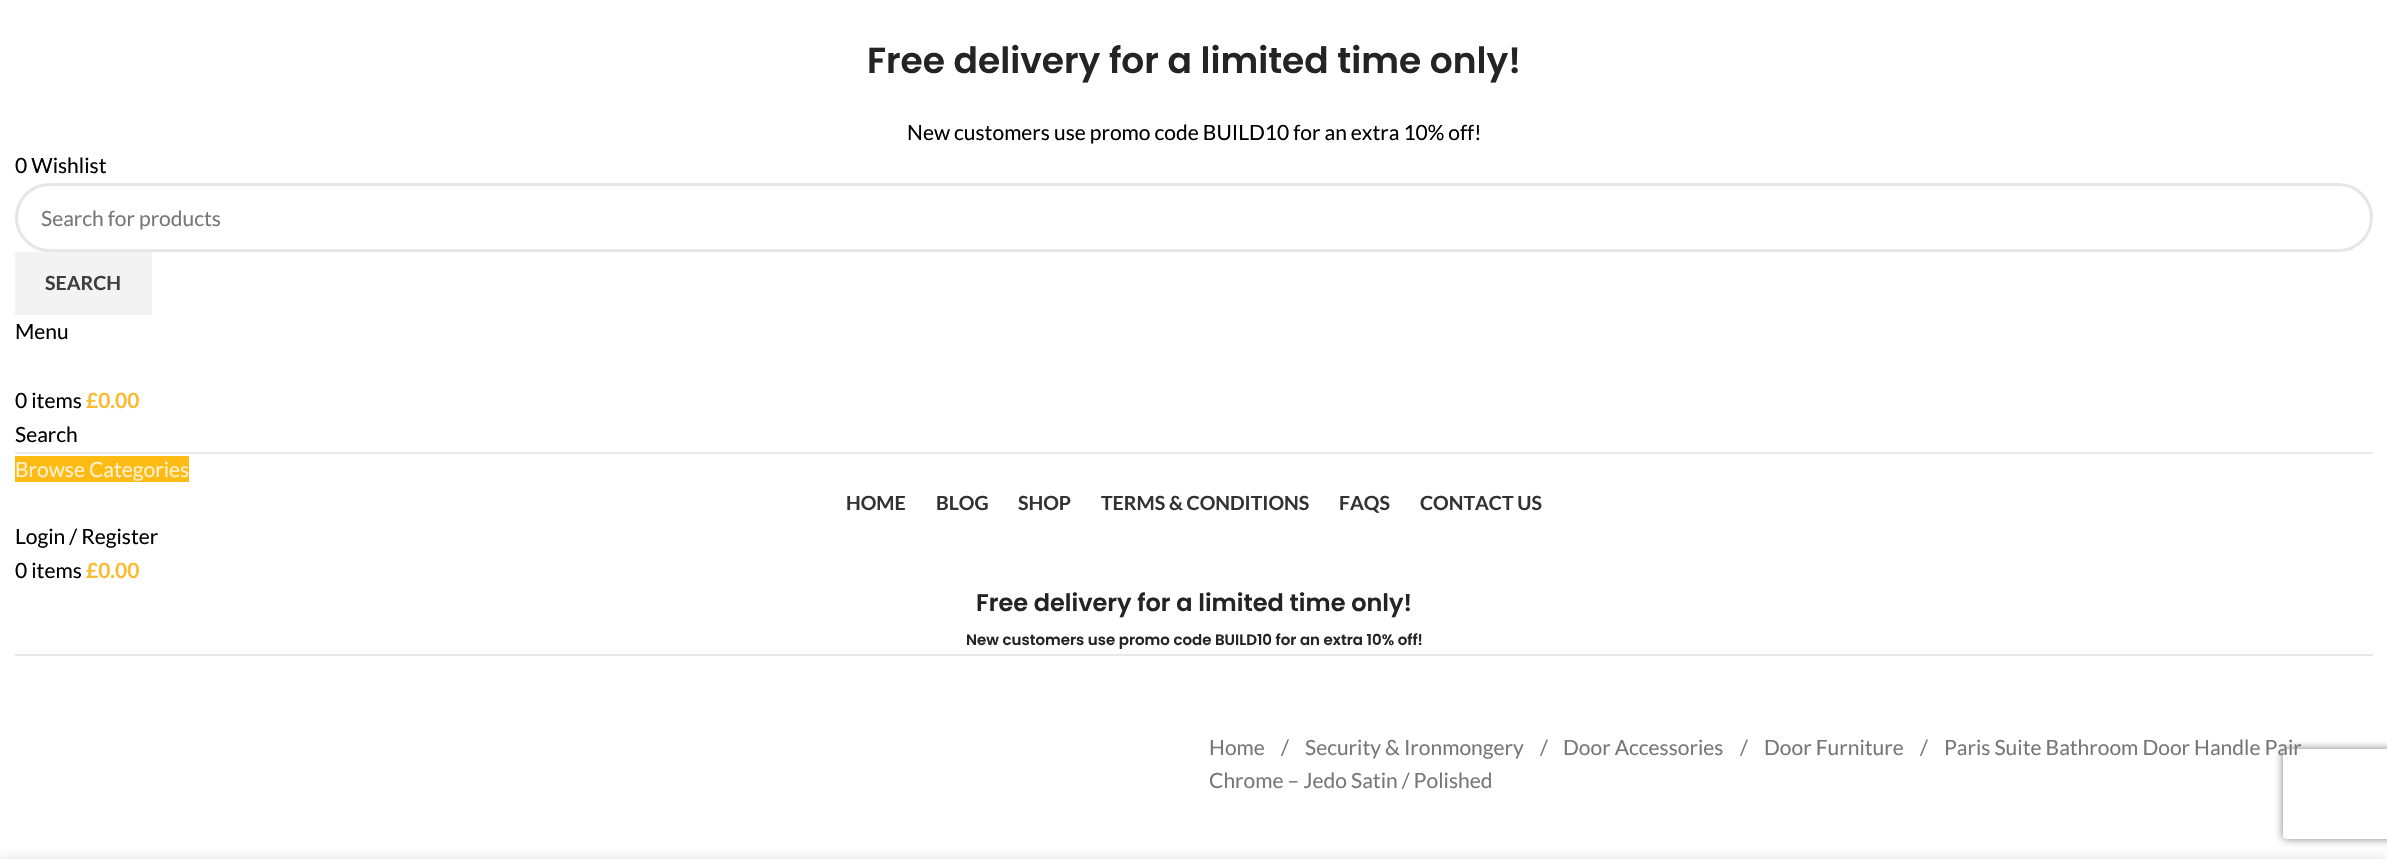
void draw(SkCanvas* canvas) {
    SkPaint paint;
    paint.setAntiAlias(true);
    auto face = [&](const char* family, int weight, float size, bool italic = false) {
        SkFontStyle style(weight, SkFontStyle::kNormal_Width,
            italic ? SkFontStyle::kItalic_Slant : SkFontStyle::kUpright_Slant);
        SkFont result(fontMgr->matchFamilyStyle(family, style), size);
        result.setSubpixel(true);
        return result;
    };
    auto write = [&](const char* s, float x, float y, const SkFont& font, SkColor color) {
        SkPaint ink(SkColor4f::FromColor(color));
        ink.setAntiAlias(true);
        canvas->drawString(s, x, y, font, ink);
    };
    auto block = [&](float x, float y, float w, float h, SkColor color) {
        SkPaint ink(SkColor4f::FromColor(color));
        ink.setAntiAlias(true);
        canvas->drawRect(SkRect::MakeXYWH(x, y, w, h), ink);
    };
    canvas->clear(SK_ColorWHITE);
    block(15, 452, 2358, 2, SkColorSetRGB(232, 232, 232));
    auto kFont1 = face("Poppins", 600, 36);
    write("Free delivery for a limited time only!", 867, 73, kFont1, SkColorSetRGB(36, 36, 36));
    auto kFont2 = face("Lato", 400, 21);
    write("New customers use promo code BUILD10 for an extra 10% off!", 907, 140, kFont2, SK_ColorBLACK);
    write("0 Wishlist", 15, 173, kFont2, SK_ColorBLACK);
    paint.setStyle(SkPaint::kStroke_Style);
    paint.setStrokeWidth(3);
    paint.setColor(SkColorSetRGB(230, 230, 230));
    canvas->drawRoundRect(SkRect::MakeXYWH(16.5f, 184.5f, 2355, 66), 33, 33, paint);
    write("Search for products", 41, 226, kFont2, SkColorSetRGB(119, 119, 119));
    block(15, 252, 137, 63, SkColorSetRGB(243, 243, 243));
    auto kFont3 = face("Lato", 700, 19.5f);
    write("SEARCH", 45, 290, kFont3, SkColorSetRGB(62, 62, 62));
    write("Menu", 15, 339, kFont2, SK_ColorBLACK);
    write("0 items", 15, 408, kFont2, SK_ColorBLACK);
    auto kFont4 = face("Lato", 700, 21);
    write("£0.00", 86, 408, kFont4, SkColorSetRGB(251, 188, 52));
    write("Search", 15, 442, kFont2, SK_ColorBLACK);
    block(15, 654, 2358, 2, SkColorSetRGB(232, 232, 232));
    block(15, 456, 174, 26, SkColorSetRGB(253, 187, 19));
    write("Browse Categories", 15, 477, kFont2, SkColorSetRGB(255, 241, 208));
    write("HOME", 846, 510, kFont3, SkColorSetRGB(51, 51, 51));
    write("BLOG", 936, 510, kFont3, SkColorSetRGB(51, 51, 51));
    write("SHOP", 1018, 510, kFont3, SkColorSetRGB(51, 51, 51));
    write("TERMS & CONDITIONS", 1101, 510, kFont3, SkColorSetRGB(51, 51, 51));
    write("FAQS", 1339, 510, kFont3, SkColorSetRGB(51, 51, 51));
    write("CONTACT US", 1420, 510, kFont3, SkColorSetRGB(51, 51, 51));
    write("Login / Register", 15, 544, kFont2, SK_ColorBLACK);
    write("0 items", 15, 578, kFont2, SK_ColorBLACK);
    write("£0.00", 86, 578, kFont4, SkColorSetRGB(251, 188, 52));
    auto kFont5 = face("Poppins", 600, 24);
    write("Free delivery for a limited time only!", 976, 611, kFont5, SkColorSetRGB(36, 36, 36));
    auto kFont6 = face("Poppins", 600, 15);
    write("New customers use promo code BUILD10 for an extra 10% off!", 966, 645, kFont6, SkColorSetRGB(36, 36, 36));
    write("Home", 1209, 755, kFont2, SkColorSetRGB(119, 119, 119));
    write("/", 1281, 755, kFont2, SkColorSetRGB(119, 119, 119));
    write("Security & Ironmongery", 1305, 755, kFont2, SkColorSetRGB(119, 119, 119));
    write("/", 1540, 755, kFont2, SkColorSetRGB(119, 119, 119));
    write("Door Accessories", 1563, 755, kFont2, SkColorSetRGB(119, 119, 119));
    write("/", 1740, 755, kFont2, SkColorSetRGB(119, 119, 119));
    write("Door Furniture", 1764, 755, kFont2, SkColorSetRGB(119, 119, 119));
    write("/", 1920, 755, kFont2, SkColorSetRGB(119, 119, 119));
    write("Paris Suite Bathroom Door Handle Pair", 1944, 755, kFont2, SkColorSetRGB(119, 119, 119));
    write("Chrome – Jedo Satin / Polished", 1209, 788, kFont2, SkColorSetRGB(119, 119, 119));
    canvas->save();
    canvas->clipPath(SkPathBuilder(SkPathFillType::kEvenOdd).moveTo(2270, 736).lineTo(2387, 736).lineTo(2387, 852).lineTo(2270, 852).close().moveTo(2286, 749).lineTo(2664, 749).cubicTo(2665.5f, 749, 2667, 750.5f, 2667, 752).lineTo(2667, 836).cubicTo(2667, 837.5f, 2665.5f, 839, 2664, 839).lineTo(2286, 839).cubicTo(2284.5f, 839, 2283, 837.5f, 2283, 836).lineTo(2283, 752).cubicTo(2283, 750.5f, 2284.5f, 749, 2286, 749).close().detach(), true);
    paint.setStyle(SkPaint::kFill_Style);
    paint.setColor(SkColorSetRGB(128, 128, 128));
    paint.setMaskFilter(SkMaskFilter::MakeBlur(kNormal_SkBlurStyle, 4));
    canvas->drawRoundRect(SkRect::MakeXYWH(2283, 749, 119, 90), 3, 3, paint);
    paint.setMaskFilter(nullptr);
    canvas->restore();
    paint.setColor(SkColorSetARGB(36, 0, 0, 0));
    paint.setMaskFilter(SkMaskFilter::MakeBlur(kNormal_SkBlurStyle, 7));
    canvas->drawRect(SkRect::MakeXYWH(0, 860, 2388, 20), paint);
    paint.setMaskFilter(nullptr);
}
